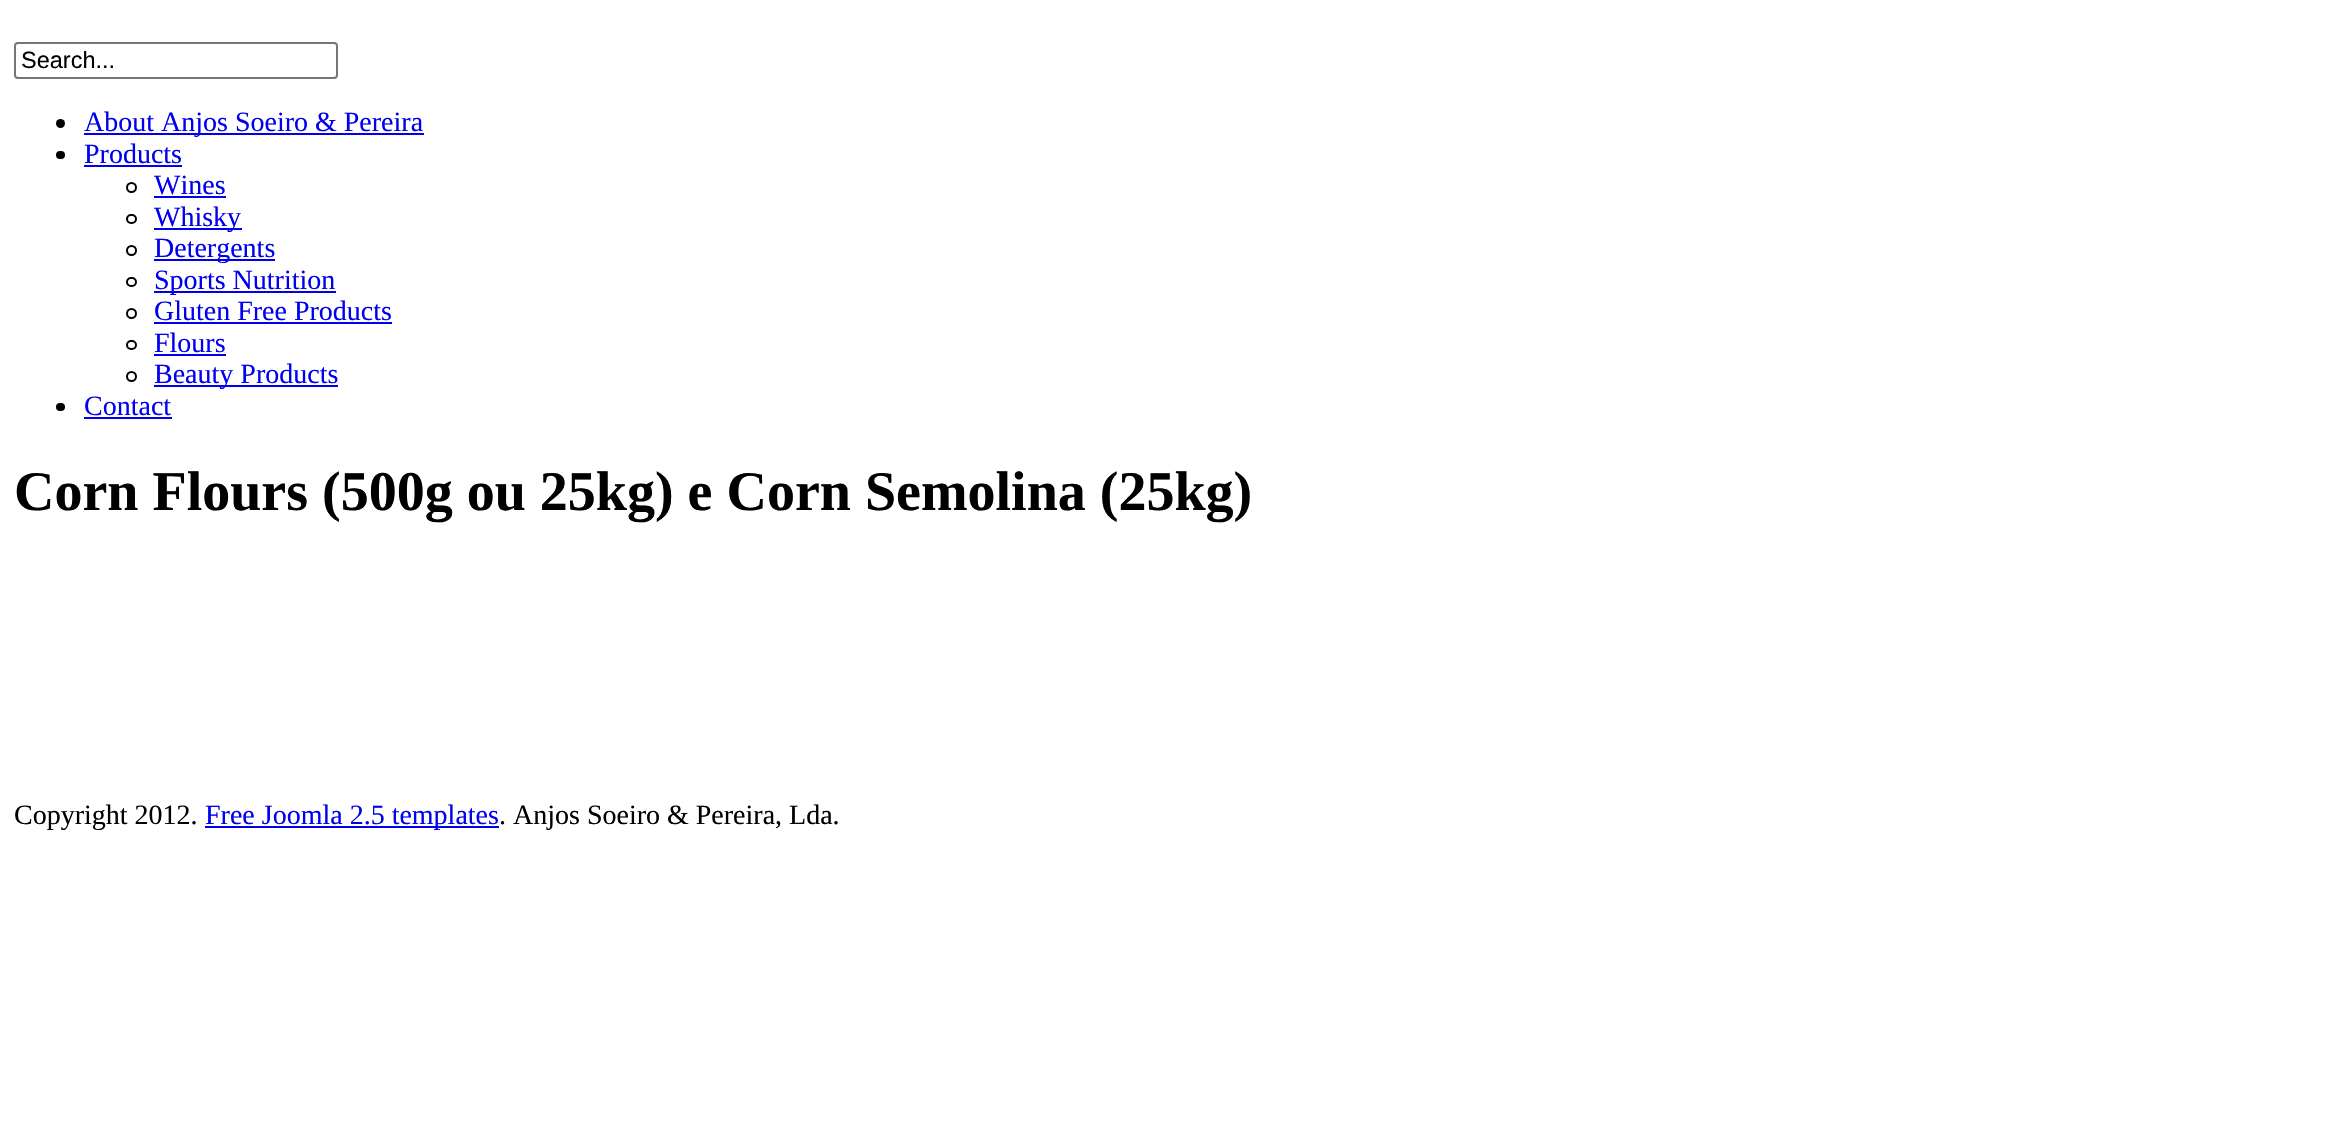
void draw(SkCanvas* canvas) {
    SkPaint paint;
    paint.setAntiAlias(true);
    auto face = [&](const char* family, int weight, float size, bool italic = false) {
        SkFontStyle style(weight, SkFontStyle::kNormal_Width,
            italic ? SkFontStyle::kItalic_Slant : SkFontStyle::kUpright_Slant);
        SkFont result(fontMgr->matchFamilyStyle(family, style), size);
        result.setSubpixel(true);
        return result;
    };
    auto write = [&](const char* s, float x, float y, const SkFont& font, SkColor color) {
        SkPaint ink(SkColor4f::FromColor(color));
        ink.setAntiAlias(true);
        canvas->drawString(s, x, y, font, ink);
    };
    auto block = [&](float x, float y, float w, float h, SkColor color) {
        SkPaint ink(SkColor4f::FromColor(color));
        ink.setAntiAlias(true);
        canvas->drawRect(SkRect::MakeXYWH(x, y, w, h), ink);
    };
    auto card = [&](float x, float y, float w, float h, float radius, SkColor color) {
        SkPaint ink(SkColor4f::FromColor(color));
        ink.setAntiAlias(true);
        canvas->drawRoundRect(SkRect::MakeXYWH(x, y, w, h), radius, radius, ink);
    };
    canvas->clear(SK_ColorWHITE);
    paint.setStyle(SkPaint::kStroke_Style);
    paint.setStrokeWidth(2);
    paint.setColor(SkColorSetRGB(118, 118, 118));
    canvas->drawRoundRect(SkRect::MakeXYWH(15, 43, 322, 35), 3, 3, paint);
    auto kFont1 = face("Liberation Sans", 400, 23.5f);
    write("Search...", 21, 68, kFont1, SK_ColorBLACK);
    paint.setStyle(SkPaint::kFill_Style);
    paint.setColor(SK_ColorBLACK);
    canvas->drawCircle(60.5f, 123.5f, 4.5f, paint);
    block(84, 133, 340, 2, SkColorSetRGB(0, 0, 238));
    auto kFont2 = face("Liberation Serif", 400, 28);
    write("About Anjos Soeiro & Pereira", 84, 131, kFont2, SkColorSetRGB(0, 0, 238));
    card(56, 151, 9, 8, 4, SK_ColorBLACK);
    write("Products", 84, 163, kFont2, SkColorSetRGB(0, 0, 238));
    block(84, 165, 98, 2, SkColorSetRGB(0, 0, 238));
    paint.setStyle(SkPaint::kStroke_Style);
    canvas->drawCircle(131.5f, 187.5f, 4.5f, paint);
    write("Wines", 154, 194, kFont2, SkColorSetRGB(0, 0, 238));
    block(154, 196, 72, 2, SkColorSetRGB(0, 0, 238));
    canvas->drawRoundRect(SkRect::MakeXYWH(127, 215, 9, 8), 4, 4, paint);
    block(154, 228, 88, 2, SkColorSetRGB(0, 0, 238));
    write("Whisky", 154, 226, kFont2, SkColorSetRGB(0, 0, 238));
    canvas->drawCircle(131.5f, 250.5f, 4.5f, paint);
    block(154, 259, 121, 2, SkColorSetRGB(0, 0, 238));
    write("Detergents", 154, 257, kFont2, SkColorSetRGB(0, 0, 238));
    canvas->drawRoundRect(SkRect::MakeXYWH(127, 278, 9, 8), 4, 4, paint);
    block(154, 291, 182, 2, SkColorSetRGB(0, 0, 238));
    write("Sports Nutrition", 154, 289, kFont2, SkColorSetRGB(0, 0, 238));
    canvas->drawCircle(131.5f, 313.5f, 4.5f, paint);
    write("Gluten Free Products", 154, 320, kFont2, SkColorSetRGB(0, 0, 238));
    block(154, 322, 238, 2, SkColorSetRGB(0, 0, 238));
    canvas->drawRoundRect(SkRect::MakeXYWH(127, 341, 9, 8), 4, 4, paint);
    write("Flours", 154, 352, kFont2, SkColorSetRGB(0, 0, 238));
    block(154, 354, 72, 2, SkColorSetRGB(0, 0, 238));
    canvas->drawCircle(131.5f, 376.5f, 4.5f, paint);
    block(154, 385, 184, 2, SkColorSetRGB(0, 0, 238));
    write("Beauty Products", 154, 383, kFont2, SkColorSetRGB(0, 0, 238));
    card(56, 403, 9, 8, 4, SK_ColorBLACK);
    write("Contact", 84, 415, kFont2, SkColorSetRGB(0, 0, 238));
    block(84, 417, 88, 2, SkColorSetRGB(0, 0, 238));
    auto kFont3 = face("Liberation Serif", 700, 56);
    write("Corn Flours (500g ou 25kg) e Corn Semolina (25kg)", 14, 510, kFont3, SK_ColorBLACK);
    write("Copyright 2012.", 14, 824, kFont2, SK_ColorBLACK);
    block(205, 826, 294, 2, SkColorSetRGB(0, 0, 238));
    write("Free Joomla 2.5 templates", 205, 824, kFont2, SkColorSetRGB(0, 0, 238));
    write(". Anjos Soeiro & Pereira, Lda.", 499, 824, kFont2, SK_ColorBLACK);
}
